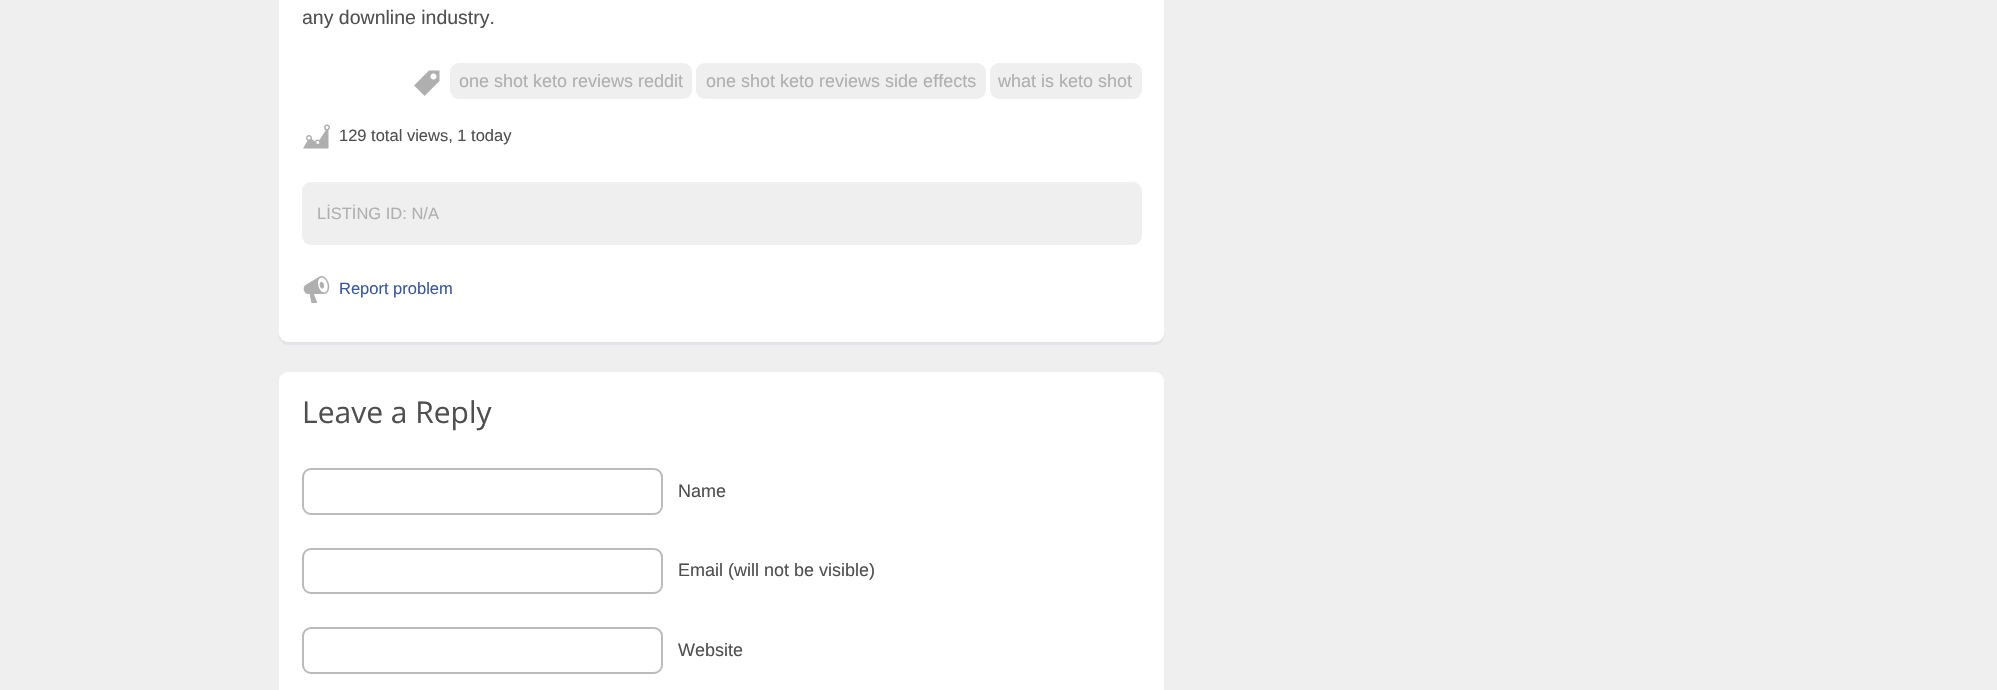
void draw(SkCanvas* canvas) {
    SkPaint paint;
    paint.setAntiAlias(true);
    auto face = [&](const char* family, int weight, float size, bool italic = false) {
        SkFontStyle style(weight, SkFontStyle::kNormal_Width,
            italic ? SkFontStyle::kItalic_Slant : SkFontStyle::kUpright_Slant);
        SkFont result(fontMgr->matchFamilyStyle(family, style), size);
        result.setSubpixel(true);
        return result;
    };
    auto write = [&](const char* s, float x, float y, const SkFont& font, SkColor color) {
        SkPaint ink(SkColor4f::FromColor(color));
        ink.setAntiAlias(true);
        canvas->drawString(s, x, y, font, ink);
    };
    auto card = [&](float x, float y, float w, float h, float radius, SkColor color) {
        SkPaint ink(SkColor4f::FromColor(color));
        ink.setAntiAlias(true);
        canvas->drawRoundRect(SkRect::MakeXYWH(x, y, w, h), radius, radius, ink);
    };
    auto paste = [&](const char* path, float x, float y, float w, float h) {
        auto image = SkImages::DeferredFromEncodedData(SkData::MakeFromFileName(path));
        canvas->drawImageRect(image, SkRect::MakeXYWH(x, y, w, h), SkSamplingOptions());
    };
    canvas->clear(SkColorSetRGB(239, 239, 239));
    paint.setColor(SkColorSetRGB(227, 228, 231));
    canvas->drawPath(SkPathBuilder().moveTo(279, 333).lineTo(279, 336).cubicTo(279, 341, 283, 345, 288, 345).lineTo(1155, 345).cubicTo(1160, 345, 1164, 341, 1164, 336).lineTo(1164, 333).cubicTo(1164, 338, 1160, 342, 1155, 342).lineTo(288, 342).cubicTo(283, 342, 279, 338, 279, 333).close().detach(), paint);
    card(279, -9, 885, 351, 9, SK_ColorWHITE);
    auto kFont1 = face("Liberation Sans", 400, 19.5f);
    write("any downline industry.", 302, 24, kFont1, SkColorSetRGB(79, 79, 79));
    paste("pic1.png", 414, 70, 26, 26);
    card(450, 63, 242, 36, 9, SkColorSetRGB(239, 239, 239));
    auto kFont2 = face("Liberation Sans", 400, 18);
    write("one shot keto reviews reddit", 459, 87, kFont2, SkColorSetRGB(175, 175, 175));
    card(696, 63, 290, 36, 9, SkColorSetRGB(239, 239, 239));
    write("one shot keto reviews side effects", 706, 87, kFont2, SkColorSetRGB(175, 175, 175));
    card(990, 63, 152, 36, 9, SkColorSetRGB(239, 239, 239));
    write("what is keto shot", 998, 87, kFont2, SkColorSetRGB(175, 175, 175));
    paste("pic2.png", 303, 124, 27, 25);
    auto kFont3 = face("Liberation Sans", 400, 16.5f);
    write("129 total views, 1 today", 339, 141, kFont3, SkColorSetRGB(79, 79, 79));
    card(302, 182, 840, 63, 9, SkColorSetRGB(239, 239, 239));
    write("LİSTİNG ID: N/A", 317, 219, kFont3, SkColorSetRGB(175, 175, 175));
    paste("pic3.png", 303, 276, 27, 27);
    write("Report problem", 339, 294, kFont3, SkColorSetRGB(59, 89, 152));
    card(279, 372, 885, 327, 9, SK_ColorWHITE);
    auto kFont4 = face("Open Sans", 400, 30);
    write("Leave a Reply", 302, 423, kFont4, SkColorSetRGB(79, 79, 79));
    paint.setStyle(SkPaint::kStroke_Style);
    paint.setStrokeWidth(2);
    paint.setColor(SkColorSetRGB(187, 187, 187));
    canvas->drawRoundRect(SkRect::MakeXYWH(303, 469, 359, 45), 8, 8, paint);
    write("Name", 678, 497, kFont2, SkColorSetRGB(79, 79, 79));
    canvas->drawRoundRect(SkRect::MakeXYWH(303, 549, 359, 44), 8, 8, paint);
    write("Email (will not be visible)", 678, 576, kFont2, SkColorSetRGB(79, 79, 79));
    canvas->drawRoundRect(SkRect::MakeXYWH(303, 628, 359, 45), 8, 8, paint);
    write("Website", 678, 656, kFont2, SkColorSetRGB(79, 79, 79));
}
